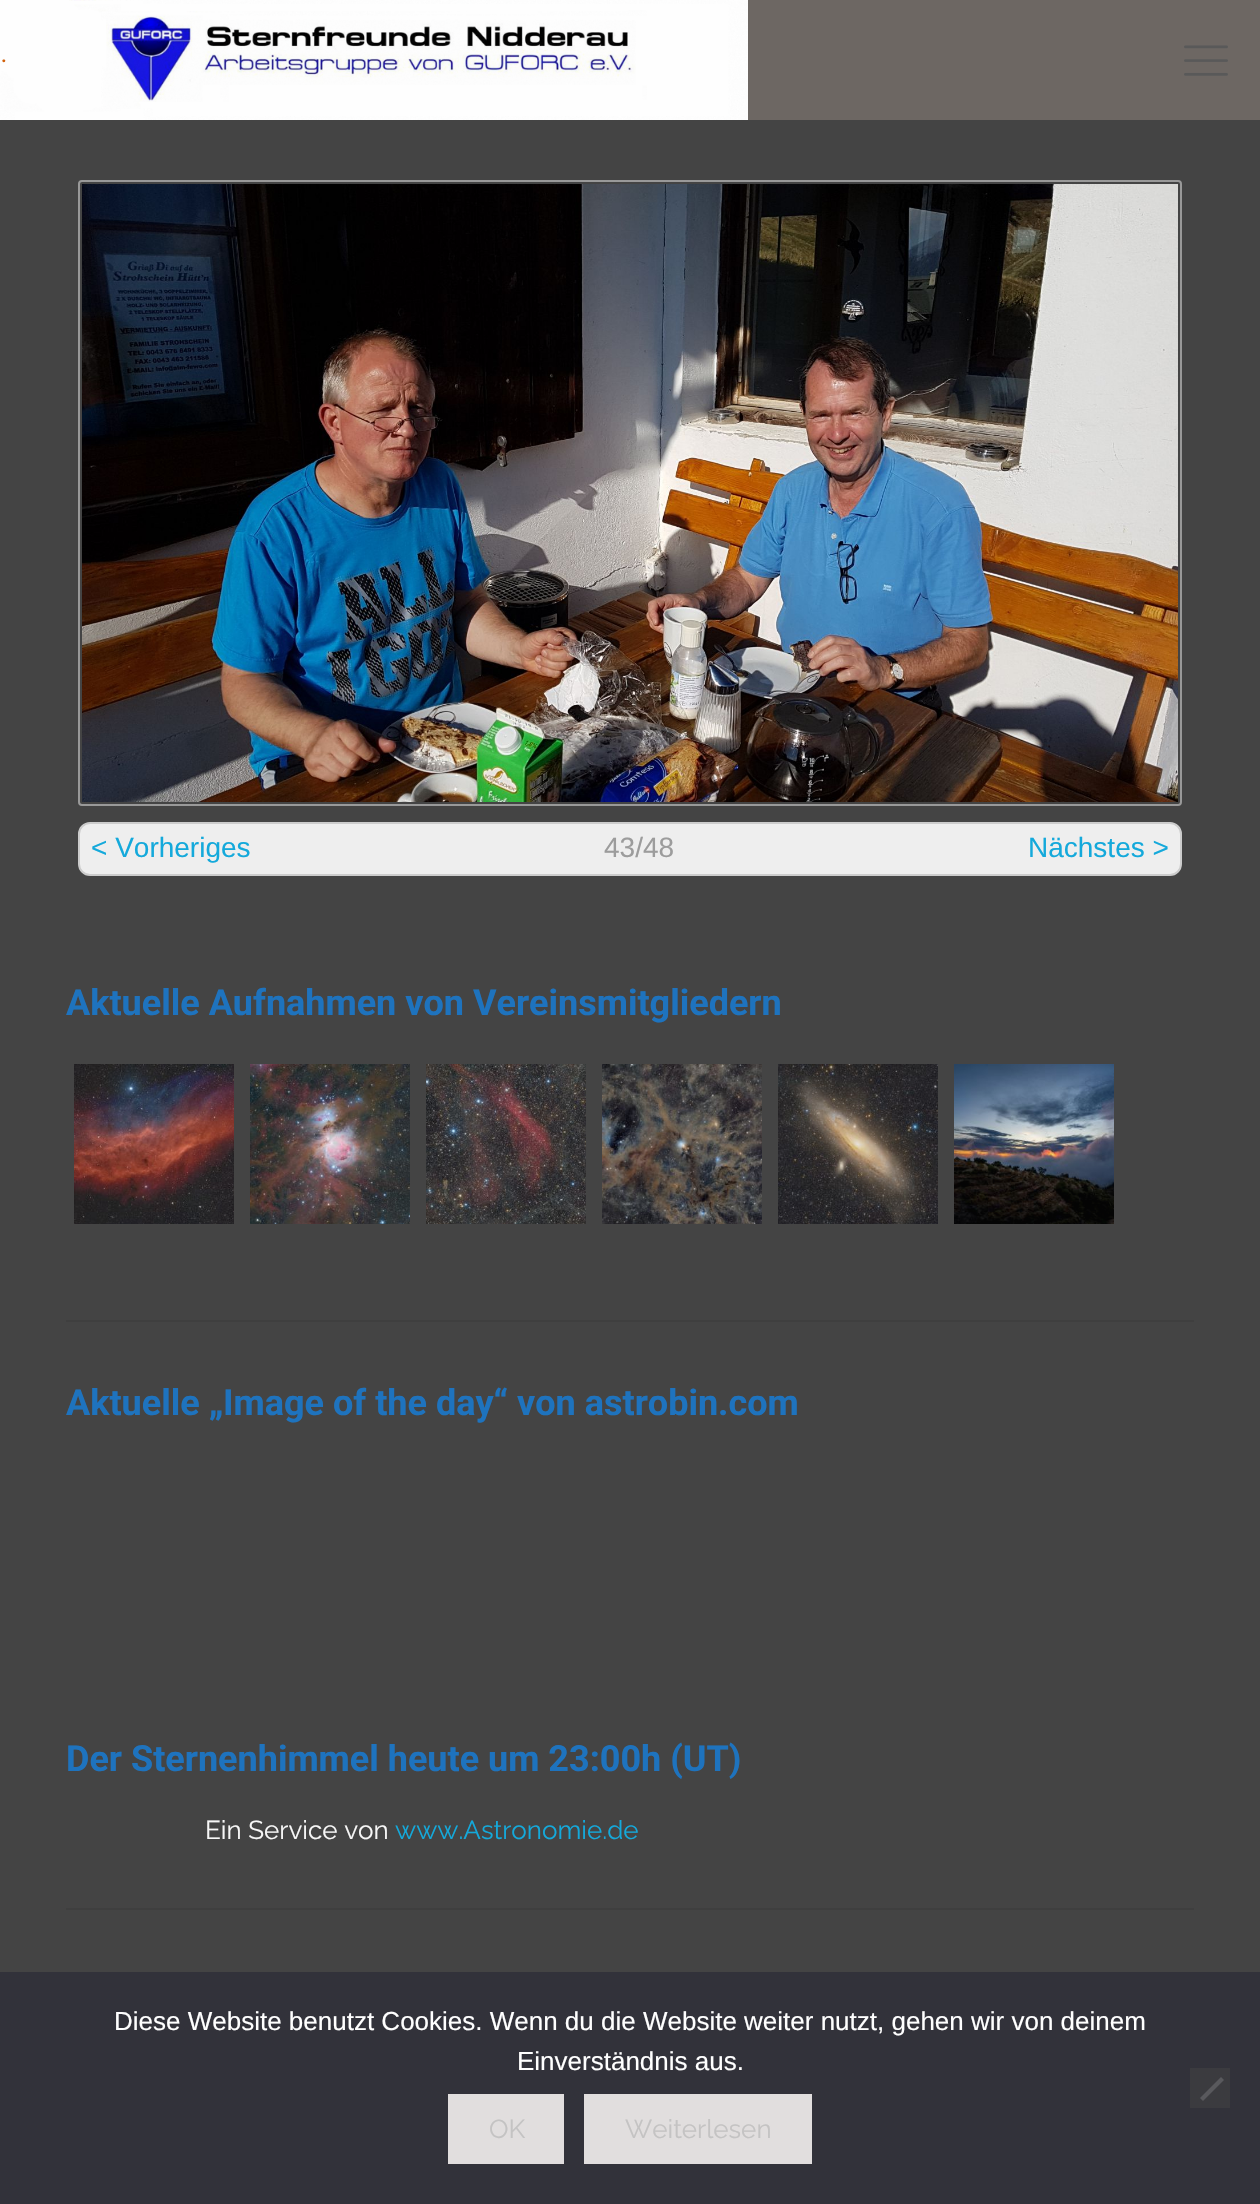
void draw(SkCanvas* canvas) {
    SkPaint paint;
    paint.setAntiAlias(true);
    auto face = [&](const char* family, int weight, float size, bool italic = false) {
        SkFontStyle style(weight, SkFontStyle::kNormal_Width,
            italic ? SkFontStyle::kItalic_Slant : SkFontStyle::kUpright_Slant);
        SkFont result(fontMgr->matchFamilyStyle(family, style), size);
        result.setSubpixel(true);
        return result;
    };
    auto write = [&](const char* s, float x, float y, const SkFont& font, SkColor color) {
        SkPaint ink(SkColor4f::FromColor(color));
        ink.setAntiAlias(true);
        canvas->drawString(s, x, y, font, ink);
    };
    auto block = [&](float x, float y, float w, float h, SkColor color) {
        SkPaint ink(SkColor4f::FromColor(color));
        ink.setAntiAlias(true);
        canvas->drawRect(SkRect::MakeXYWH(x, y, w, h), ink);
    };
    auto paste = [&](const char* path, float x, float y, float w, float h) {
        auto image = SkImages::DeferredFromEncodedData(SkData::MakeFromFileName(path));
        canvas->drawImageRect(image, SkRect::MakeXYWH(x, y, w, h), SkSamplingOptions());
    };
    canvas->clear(SkColorSetRGB(68, 68, 68));
    block(748, 0, 512, 120, SkColorSetRGB(109, 103, 99));
    paste("pic1.png", 0, 0, 748, 120);
    auto kFont1 = face("Roboto", 300, 34);
    write(".", 0, 62, kFont1, SkColorSetRGB(210, 97, 11));
    paste("pic2.png", 1184, 45, 44, 31);
    paint.setStyle(SkPaint::kStroke_Style);
    paint.setStrokeWidth(2);
    paint.setColor(SkColorSetRGB(153, 153, 153));
    canvas->drawRoundRect(SkRect::MakeXYWH(79, 181, 1102, 624), 3, 3, paint);
    paste("pic3.png", 82, 184, 1096, 618);
    paint.setStyle(SkPaint::kFill_Style);
    paint.setColor(SkColorSetRGB(238, 238, 238));
    canvas->drawRoundRect(SkRect::MakeXYWH(79, 823, 1102, 52), 11, 11, paint);
    paint.setStyle(SkPaint::kStroke_Style);
    paint.setColor(SkColorSetRGB(204, 204, 204));
    canvas->drawRoundRect(SkRect::MakeXYWH(79, 823, 1102, 52), 11, 11, paint);
    auto kFont2 = face("Liberation Sans", 400, 28);
    write("< Vorheriges", 91, 857, kFont2, SkColorSetRGB(20, 169, 219));
    write("43/48", 604, 857, kFont2, SkColorSetRGB(156, 156, 156));
    write("Nächstes >", 1028, 857, kFont2, SkColorSetRGB(20, 169, 219));
    auto kFont3 = face("Roboto", 700, 36);
    write("Aktuelle Aufnahmen von Vereinsmitgliedern", 66, 1015, kFont3, SkColorSetRGB(30, 115, 190));
    paste("pic4.png", 74, 1064, 160, 160);
    paste("pic5.png", 250, 1064, 160, 160);
    paste("pic6.png", 426, 1064, 160, 160);
    paste("pic7.png", 602, 1064, 160, 160);
    paste("pic8.png", 778, 1064, 160, 160);
    paste("pic9.png", 954, 1064, 160, 160);
    block(66, 1320, 1128, 2, SkColorSetRGB(63, 63, 63));
    write("Aktuelle „Image of the day“ von astrobin.com", 66, 1415, kFont3, SkColorSetRGB(30, 115, 190));
    write("Der Sternenhimmel heute um 23:00h (UT)", 66, 1771, kFont3, SkColorSetRGB(30, 115, 190));
    auto kFont4 = face("Raleway", 400, 26);
    write("Ein Service von", 205, 1839, kFont4, SkColorSetRGB(247, 247, 247));
    write("www.Astronomie.de", 395, 1839, kFont4, SkColorSetRGB(20, 169, 219));
    block(66, 1908, 1128, 2, SkColorSetRGB(63, 63, 63));
    block(0, 1972, 1260, 232, SkColorSetRGB(50, 50, 58));
    auto kFont5 = face("Liberation Sans", 400, 26);
    write("Diese Website benutzt Cookies. Wenn du die Website weiter nutzt, gehen wir von deinem", 114, 2030, kFont5, SK_ColorWHITE);
    write("Einverständnis aus.", 517, 2070, kFont5, SK_ColorWHITE);
    block(1190, 2068, 40, 40, SkColorSetRGB(59, 59, 63));
    paint.setStyle(SkPaint::kFill_Style);
    paint.setColor(SkColorSetRGB(89, 89, 93));
    canvas->drawPath(SkPathBuilder().moveTo(1221, 2077).lineTo(1224, 2080).lineTo(1203, 2101).lineTo(1200, 2098).close().detach(), paint);
    block(448, 2094, 116, 70, SkColorSetRGB(225, 222, 222));
    write("OK", 489, 2138, kFont4, SkColorSetRGB(196, 195, 195));
    block(584, 2094, 228, 70, SkColorSetRGB(225, 222, 222));
    write("Weiterlesen", 625, 2138, kFont4, SkColorSetRGB(196, 195, 195));
}
